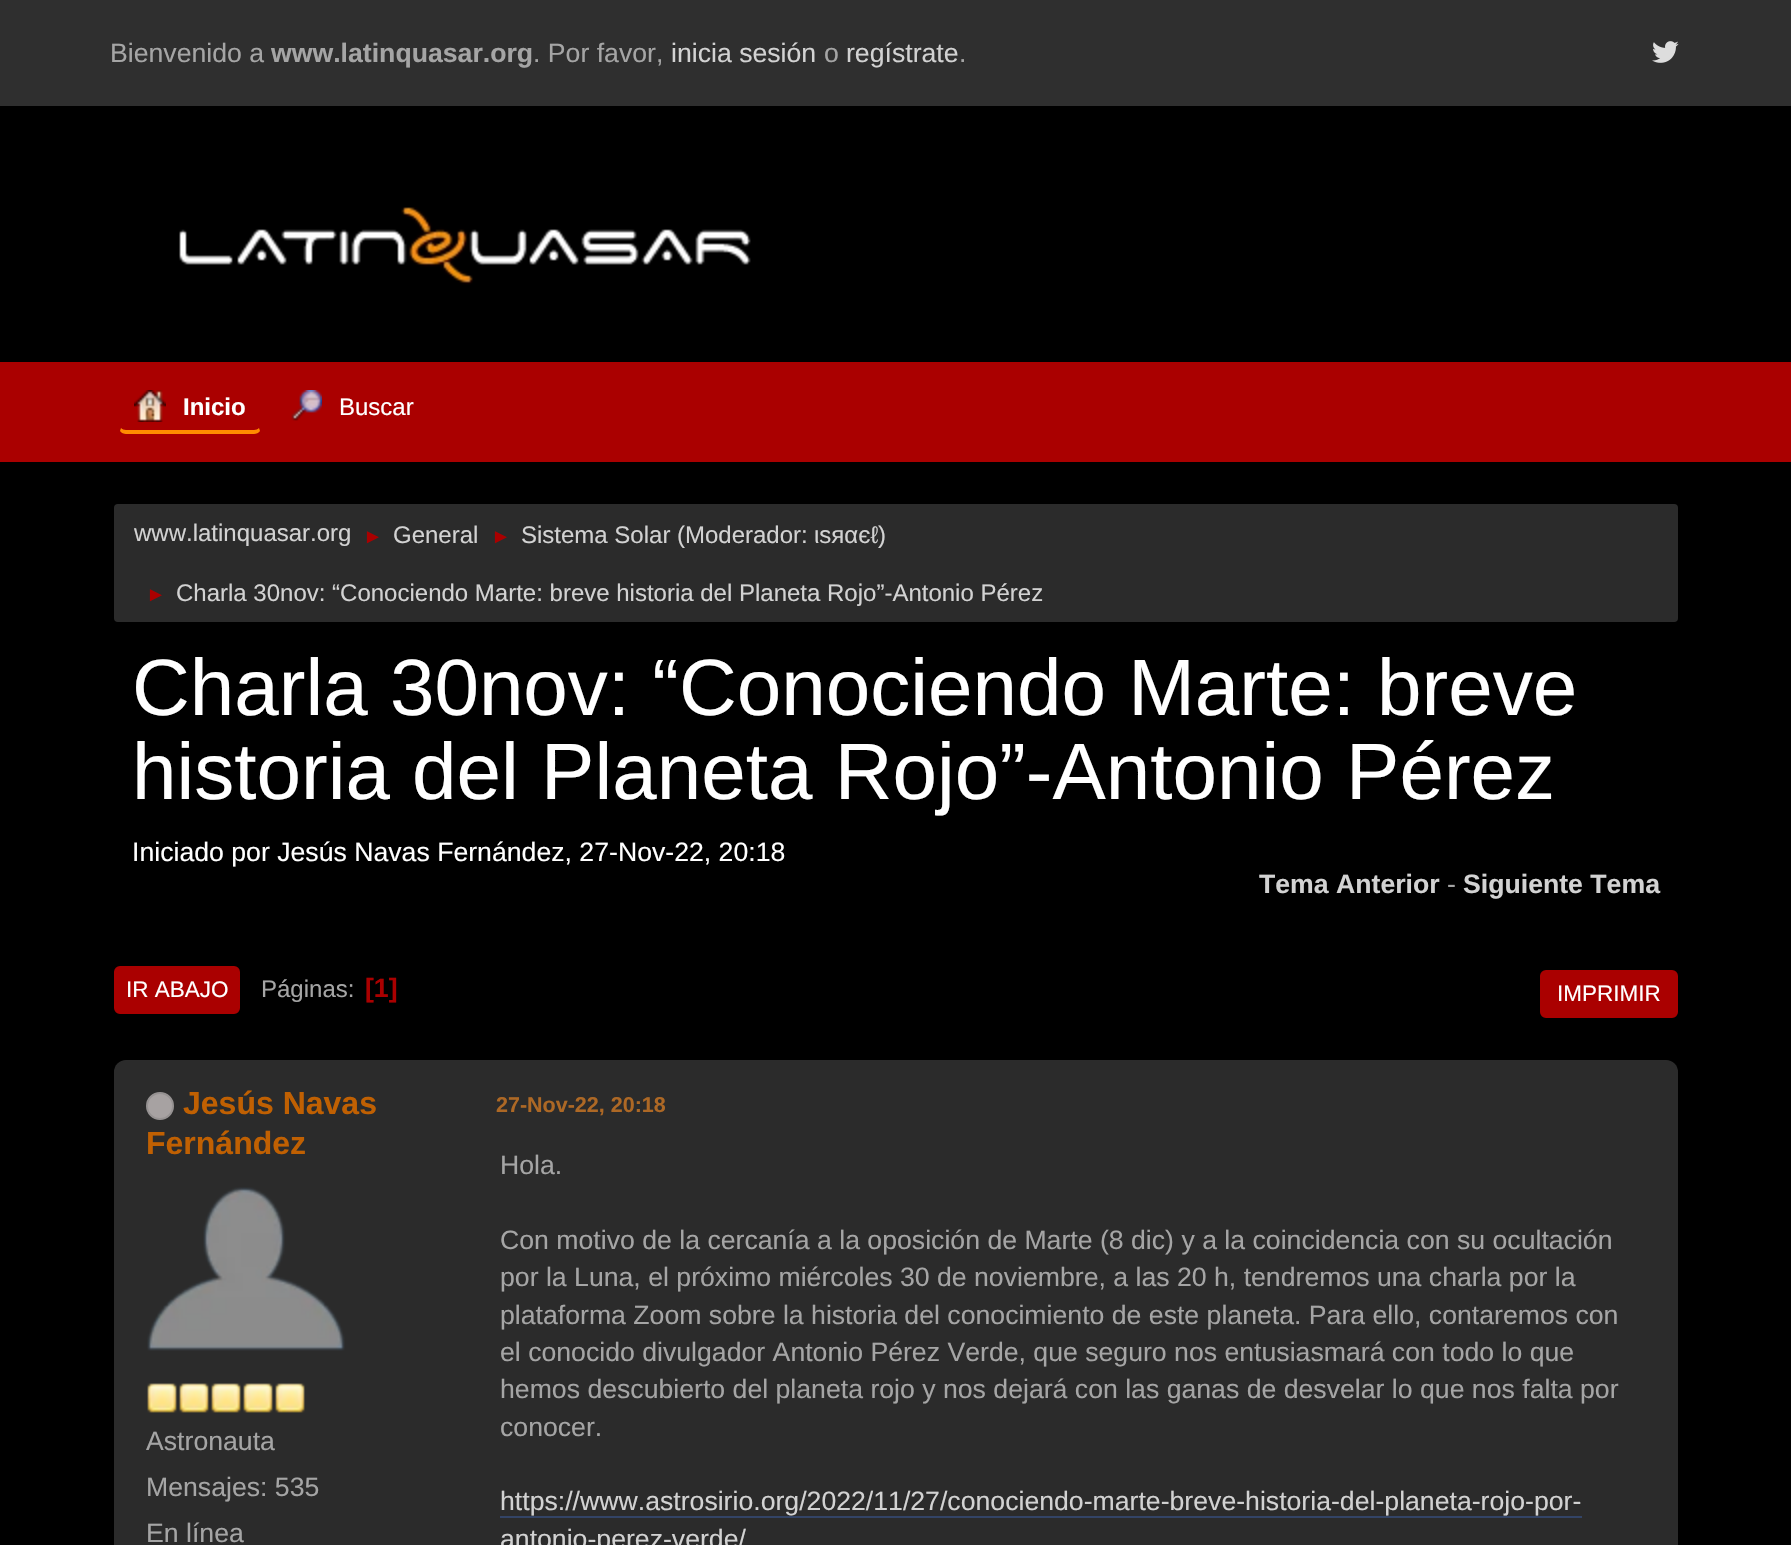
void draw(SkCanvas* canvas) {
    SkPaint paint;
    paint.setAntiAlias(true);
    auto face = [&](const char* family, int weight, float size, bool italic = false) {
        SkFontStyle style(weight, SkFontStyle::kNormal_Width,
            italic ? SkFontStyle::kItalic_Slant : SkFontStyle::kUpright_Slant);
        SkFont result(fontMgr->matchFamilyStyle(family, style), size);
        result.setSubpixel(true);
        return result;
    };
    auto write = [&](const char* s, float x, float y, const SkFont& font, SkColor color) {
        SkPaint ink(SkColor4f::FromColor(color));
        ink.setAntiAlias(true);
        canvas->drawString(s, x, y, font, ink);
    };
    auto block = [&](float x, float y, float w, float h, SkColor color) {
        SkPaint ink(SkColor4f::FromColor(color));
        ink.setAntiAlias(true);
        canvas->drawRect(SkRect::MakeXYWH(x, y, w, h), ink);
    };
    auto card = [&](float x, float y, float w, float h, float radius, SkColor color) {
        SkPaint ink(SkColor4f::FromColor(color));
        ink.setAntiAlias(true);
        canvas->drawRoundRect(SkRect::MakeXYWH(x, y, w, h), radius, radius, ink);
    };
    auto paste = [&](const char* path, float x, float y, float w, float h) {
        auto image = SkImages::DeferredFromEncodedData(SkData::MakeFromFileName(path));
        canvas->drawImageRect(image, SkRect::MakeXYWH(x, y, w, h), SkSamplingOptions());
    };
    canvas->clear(SK_ColorBLACK);
    block(0, 0, 1791, 106, SkColorSetRGB(47, 47, 47));
    auto kFont1 = face("Liberation Sans", 400, 26.65f);
    write("Bienvenido a", 110, 62, kFont1, SkColorSetRGB(165, 165, 165));
    auto kFont2 = face("Liberation Sans", 700, 26.65f);
    write("www.latinquasar.org", 271, 62, kFont2, SkColorSetRGB(165, 165, 165));
    write(". Por favor,", 533, 62, kFont1, SkColorSetRGB(165, 165, 165));
    write("inicia sesión", 671, 62, kFont1, SkColorSetRGB(210, 210, 210));
    write("o", 824, 62, kFont1, SkColorSetRGB(165, 165, 165));
    write("regístrate", 846, 62, kFont1, SkColorSetRGB(210, 210, 210));
    write(".", 959, 62, kFont1, SkColorSetRGB(165, 165, 165));
    paste("pic1.png", 1652, 41, 27, 22);
    paste("pic2.png", 179, 207, 572, 78);
    block(0, 362, 1791, 100, SkColorSetRGB(170, 0, 0));
    paint.setColor(SkColorSetRGB(255, 140, 0));
    canvas->drawPath(SkPathBuilder().moveTo(126, 434).lineTo(254, 434).cubicTo(256, 434, 259, 433, 260, 431).lineTo(259, 428).cubicTo(258, 429, 256, 430, 254, 430).lineTo(126, 430).cubicTo(124, 430, 122, 429, 121, 428).lineTo(120, 431).cubicTo(121, 433, 124, 434, 126, 434).close().detach(), paint);
    paste("pic3.png", 134, 390, 32, 32);
    auto kFont3 = face("Liberation Sans", 700, 24);
    write("Inicio", 183, 415, kFont3, SK_ColorWHITE);
    paste("pic4.png", 291, 390, 31, 31);
    auto kFont4 = face("Liberation Sans", 400, 24);
    write("Buscar", 339, 415, kFont4, SK_ColorWHITE);
    card(114, 504, 1564, 118, 4, SkColorSetRGB(43, 43, 43));
    write("www.latinquasar.org", 134, 541, kFont4, SkColorSetRGB(210, 210, 210));
    auto kFont5 = face("Liberation Sans", 400, 20);
    write("►", 363, 543, kFont5, SkColorSetRGB(170, 0, 0));
    write("General", 393, 543, kFont4, SkColorSetRGB(210, 210, 210));
    write("►", 491, 543, kFont5, SkColorSetRGB(170, 0, 0));
    write("Sistema Solar", 521, 543, kFont4, SkColorSetRGB(210, 210, 210));
    write("(Moderador:", 677, 543, kFont4, SkColorSetRGB(210, 210, 210));
    write("ιѕяαєℓ", 814, 543, kFont4, SkColorSetRGB(210, 210, 210));
    write(")", 878, 543, kFont4, SkColorSetRGB(210, 210, 210));
    write("►", 146, 601, kFont5, SkColorSetRGB(170, 0, 0));
    write("Charla 30nov: “Conociendo Marte: breve historia del Planeta Rojo”-Antonio Pérez", 176, 601, kFont4, SkColorSetRGB(210, 210, 210));
    auto kFont6 = face("Liberation Sans", 400, 80);
    write("Charla 30nov: “Conociendo Marte: breve", 132, 715, kFont6, SK_ColorWHITE);
    write("historia del Planeta Rojo”-Antonio Pérez", 132, 799, kFont6, SK_ColorWHITE);
    write("Iniciado por Jesús Navas Fernández, 27-Nov-22, 20:18", 132, 861, kFont1, SK_ColorWHITE);
    write("Tema Anterior", 1259, 893, kFont2, SkColorSetRGB(210, 210, 210));
    write("-", 1447, 893, kFont1, SkColorSetRGB(165, 165, 165));
    write("Siguiente Tema", 1463, 893, kFont2, SkColorSetRGB(210, 210, 210));
    paint.setColor(SkColorSetRGB(170, 0, 0));
    canvas->drawRoundRect(SkRect::MakeXYWH(115, 967, 124, 46), 5, 5, paint);
    paint.setStyle(SkPaint::kStroke_Style);
    paint.setStrokeWidth(2);
    canvas->drawRoundRect(SkRect::MakeXYWH(115, 967, 124, 46), 5, 5, paint);
    auto kFont7 = face("Liberation Sans", 400, 22.5f);
    write("IR ABAJO", 126, 997, kFont7, SK_ColorWHITE);
    write("Páginas:", 261, 997, kFont4, SkColorSetRGB(165, 165, 165));
    write("[1]", 365, 997, kFont2, SkColorSetRGB(170, 0, 0));
    paint.setStyle(SkPaint::kFill_Style);
    canvas->drawRoundRect(SkRect::MakeXYWH(1541, 971, 136, 46), 5, 5, paint);
    paint.setStyle(SkPaint::kStroke_Style);
    canvas->drawRoundRect(SkRect::MakeXYWH(1541, 971, 136, 46), 5, 5, paint);
    write("IMPRIMIR", 1557, 1001, kFont7, SK_ColorWHITE);
    card(114, 1060, 1564, 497, 12, SkColorSetRGB(43, 43, 43));
    paint.setStyle(SkPaint::kFill_Style);
    paint.setColor(SkColorSetRGB(167, 162, 162));
    canvas->drawCircle(160, 1106, 13, paint);
    paint.setStyle(SkPaint::kStroke_Style);
    paint.setColor(SkColorSetRGB(150, 146, 146));
    canvas->drawCircle(160, 1106, 13, paint);
    auto kFont8 = face("Liberation Sans", 700, 32);
    write("Jesús Navas", 183, 1114, kFont8, SkColorSetRGB(192, 96, 2));
    write("Fernández", 146, 1154, kFont8, SkColorSetRGB(192, 96, 2));
    paste("pic5.png", 147, 1187, 198, 164);
    paste("pic6.png", 147, 1383, 30, 30);
    paste("pic6.png", 179, 1383, 30, 30);
    paste("pic6.png", 211, 1383, 30, 30);
    paste("pic6.png", 243, 1383, 30, 30);
    paste("pic6.png", 275, 1383, 30, 30);
    write("Astronauta", 146, 1450, kFont1, SkColorSetRGB(165, 165, 165));
    write("Mensajes: 535", 146, 1496, kFont1, SkColorSetRGB(165, 165, 165));
    write("En línea", 146, 1542, kFont1, SkColorSetRGB(165, 165, 165));
    auto kFont9 = face("Liberation Sans", 700, 21.5f);
    write("27-Nov-22, 20:18", 496, 1112, kFont9, SkColorSetRGB(173, 104, 37));
    write("Hola.", 500, 1174, kFont1, SkColorSetRGB(165, 165, 165));
    write("Con motivo de la cercanía a la oposición de Marte (8 dic) y a la coincidencia con su ocultación", 500, 1249, kFont1, SkColorSetRGB(165, 165, 165));
    write("por la Luna, el próximo miércoles 30 de noviembre, a las 20 h, tendremos una charla por la", 500, 1286, kFont1, SkColorSetRGB(165, 165, 165));
    write("plataforma Zoom sobre la historia del conocimiento de este planeta. Para ello, contaremos con", 500, 1324, kFont1, SkColorSetRGB(165, 165, 165));
    write("el conocido divulgador Antonio Pérez Verde, que seguro nos entusiasmará con todo lo que", 500, 1361, kFont1, SkColorSetRGB(165, 165, 165));
    write("hemos descubierto del planeta rojo y nos dejará con las ganas de desvelar lo que nos falta por", 500, 1398, kFont1, SkColorSetRGB(165, 165, 165));
    write("conocer.", 500, 1436, kFont1, SkColorSetRGB(165, 165, 165));
    write("https://www.astrosirio.org/2022/11/27/conociendo-marte-breve-historia-del-planeta-rojo-por-", 500, 1510, kFont1, SkColorSetRGB(210, 210, 210));
    block(500, 1516, 1082, 2, SkColorSetRGB(51, 68, 102));
    write("antonio-perez-verde/", 500, 1548, kFont1, SkColorSetRGB(210, 210, 210));
}
